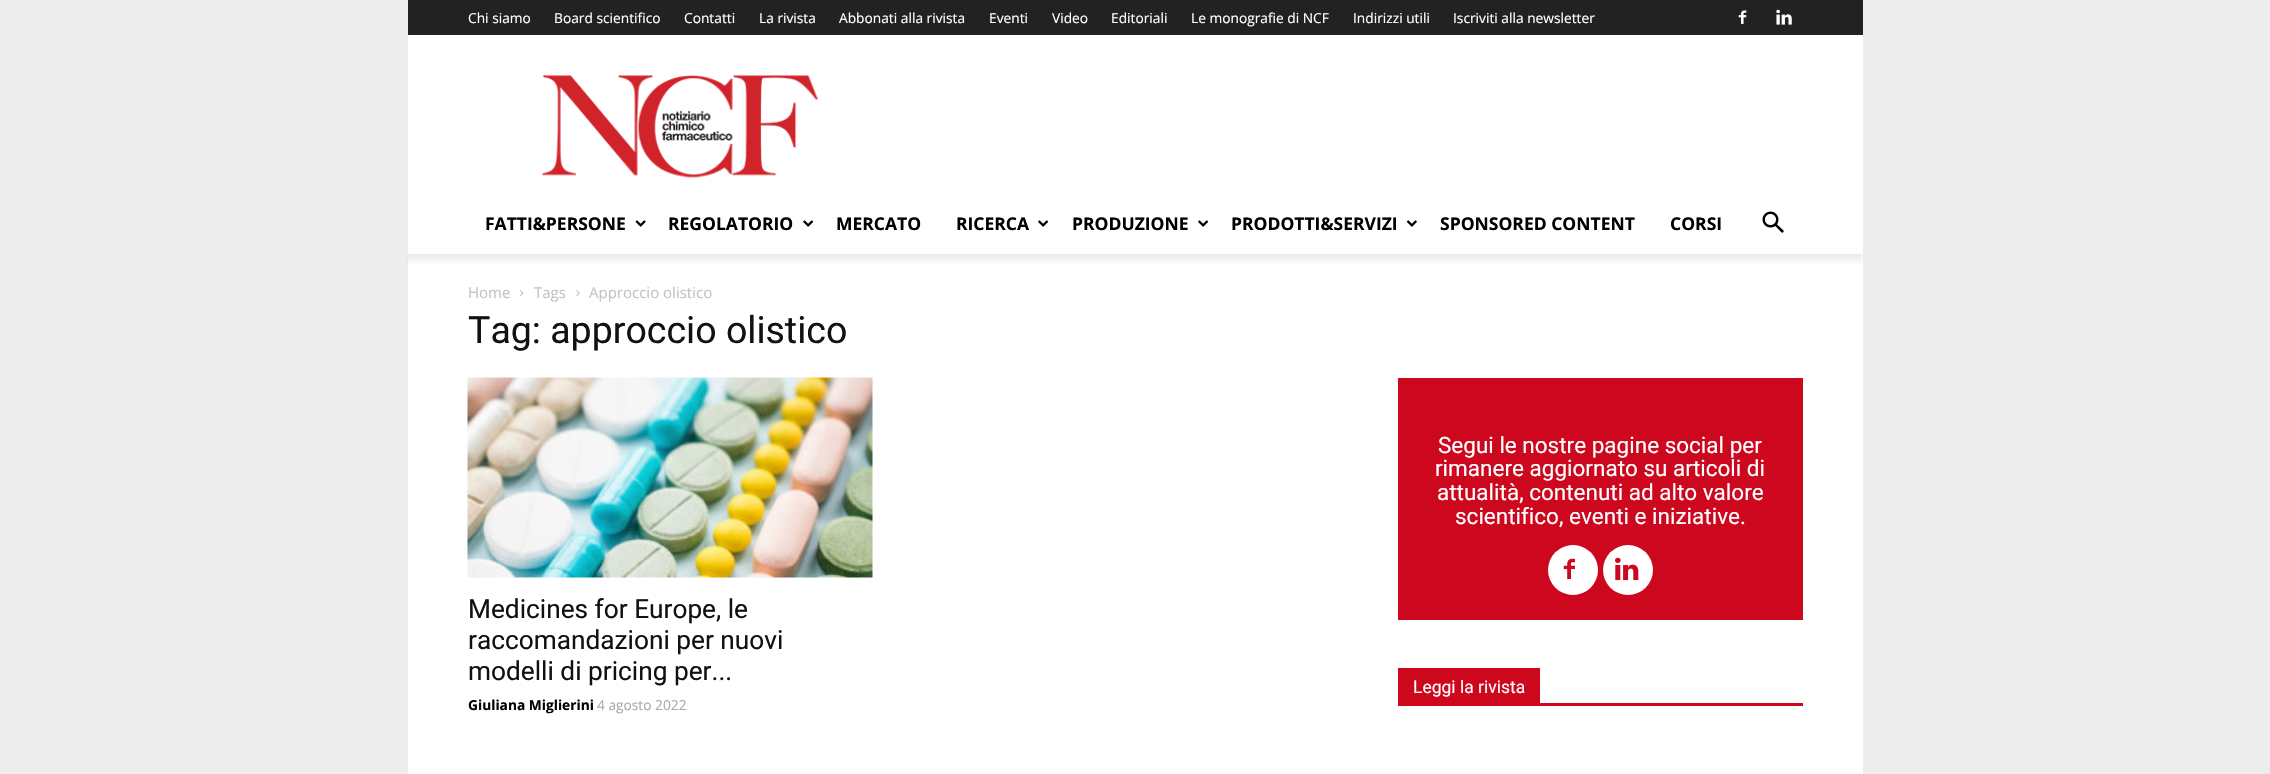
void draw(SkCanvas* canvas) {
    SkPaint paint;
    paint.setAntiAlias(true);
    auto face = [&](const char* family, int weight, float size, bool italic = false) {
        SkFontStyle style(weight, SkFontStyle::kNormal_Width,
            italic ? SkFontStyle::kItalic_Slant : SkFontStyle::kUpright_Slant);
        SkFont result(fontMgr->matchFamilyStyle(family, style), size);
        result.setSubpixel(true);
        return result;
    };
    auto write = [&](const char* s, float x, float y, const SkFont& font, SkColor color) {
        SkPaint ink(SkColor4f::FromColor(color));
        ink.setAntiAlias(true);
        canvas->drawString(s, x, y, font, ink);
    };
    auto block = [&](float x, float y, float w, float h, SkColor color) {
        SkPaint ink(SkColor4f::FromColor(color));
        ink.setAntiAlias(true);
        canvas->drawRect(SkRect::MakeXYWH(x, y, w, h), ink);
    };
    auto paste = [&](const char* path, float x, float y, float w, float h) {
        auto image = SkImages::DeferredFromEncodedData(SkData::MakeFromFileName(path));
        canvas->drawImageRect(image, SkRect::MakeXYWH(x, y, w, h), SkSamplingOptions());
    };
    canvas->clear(SkColorSetRGB(237, 237, 237));
    block(408, 0, 1455, 35, SkColorSetRGB(34, 34, 34));
    auto kFont1 = face("Open Sans", 400, 13.75f);
    write("Chi siamo", 468, 23, kFont1, SK_ColorWHITE);
    write("Board scientifico", 554, 23, kFont1, SK_ColorWHITE);
    write("Contatti", 684, 23, kFont1, SK_ColorWHITE);
    write("La rivista", 759, 23, kFont1, SK_ColorWHITE);
    write("Abbonati alla rivista", 839, 23, kFont1, SK_ColorWHITE);
    write("Eventi", 989, 23, kFont1, SK_ColorWHITE);
    write("Video", 1052, 23, kFont1, SK_ColorWHITE);
    write("Editoriali", 1111, 23, kFont1, SK_ColorWHITE);
    write("Le monografie di NCF", 1191, 23, kFont1, SK_ColorWHITE);
    write("Indirizzi utili", 1353, 23, kFont1, SK_ColorWHITE);
    write("Iscriviti alla newsletter", 1453, 23, kFont1, SK_ColorWHITE);
    paste("pic1.png", 1738, 10, 9, 14);
    paste("pic2.png", 1776, 9, 16, 16);
    block(408, 35, 1455, 219, SK_ColorWHITE);
    paste("pic3.png", 542, 75, 276, 103);
    auto kFont2 = face("Open Sans", 700, 17.5f);
    write("FATTI&PERSONE", 485, 230, kFont2, SK_ColorBLACK);
    paste("pic4.png", 635, 220, 11, 7);
    write("REGOLATORIO", 668, 230, kFont2, SK_ColorBLACK);
    paste("pic5.png", 803, 220, 11, 7);
    write("MERCATO", 836, 230, kFont2, SK_ColorBLACK);
    write("RICERCA", 956, 230, kFont2, SK_ColorBLACK);
    paste("pic5.png", 1038, 220, 11, 7);
    write("PRODUZIONE", 1072, 230, kFont2, SK_ColorBLACK);
    paste("pic5.png", 1198, 220, 11, 7);
    write("PRODOTTI&SERVIZI", 1231, 230, kFont2, SK_ColorBLACK);
    paste("pic6.png", 1406, 220, 11, 7);
    write("SPONSORED CONTENT", 1440, 230, kFont2, SK_ColorBLACK);
    write("CORSI", 1670, 230, kFont2, SK_ColorBLACK);
    paste("pic7.png", 1762, 211, 22, 22);
    block(408, 254, 1455, 520, SK_ColorWHITE);
    paste("pic8.png", 407, 254, 1456, 10);
    auto kFont3 = face("Open Sans", 400, 15);
    write("Home", 468, 298, kFont3, SkColorSetRGB(195, 195, 195));
    paste("pic9.png", 520, 290, 4, 6);
    write("Tags", 534, 298, kFont3, SkColorSetRGB(195, 195, 195));
    paste("pic10.png", 576, 290, 4, 6);
    write("Approccio olistico", 589, 298, kFont3, SkColorSetRGB(195, 195, 195));
    auto kFont4 = face("Roboto", 400, 37.5f);
    write("Tag: approccio olistico", 468, 343, kFont4, SkColorSetRGB(17, 17, 17));
    paste("pic11.png", 467, 377, 406, 201);
    auto kFont5 = face("Roboto", 400, 26.25f);
    write("Medicines for Europe, le", 468, 618, kFont5, SkColorSetRGB(17, 17, 17));
    write("raccomandazioni per nuovi", 468, 649, kFont5, SkColorSetRGB(17, 17, 17));
    write("modelli di pricing per...", 468, 680, kFont5, SkColorSetRGB(17, 17, 17));
    auto kFont6 = face("Open Sans", 700, 13.75f);
    write("Giuliana Miglierini", 468, 710, kFont6, SK_ColorBLACK);
    write("4 agosto 2022", 597, 710, kFont1, SkColorSetRGB(170, 170, 170));
    block(1398, 378, 405, 242, SkColorSetRGB(205, 7, 30));
    auto kFont7 = face("Roboto", 400, 22.5f);
    write("Segui le nostre pagine social per", 1438, 453, kFont7, SK_ColorWHITE);
    write("rimanere aggiornato su articoli di", 1435, 476, kFont7, SK_ColorWHITE);
    write("attualità, contenuti ad alto valore", 1437, 500, kFont7, SK_ColorWHITE);
    write("scientifico, eventi e iniziative.", 1455, 524, kFont7, SK_ColorWHITE);
    paint.setColor(SK_ColorWHITE);
    canvas->drawCircle(1573, 570, 25, paint);
    paste("pic12.png", 1563, 558, 12, 22);
    canvas->drawCircle(1628, 570, 25, paint);
    paste("pic13.png", 1615, 557, 24, 24);
    block(1398, 703, 405, 3, SkColorSetRGB(205, 8, 29));
    block(1398, 668, 142, 35, SkColorSetRGB(205, 8, 29));
    auto kFont8 = face("Roboto", 400, 17.5f);
    write("Leggi la rivista", 1413, 693, kFont8, SK_ColorWHITE);
}
